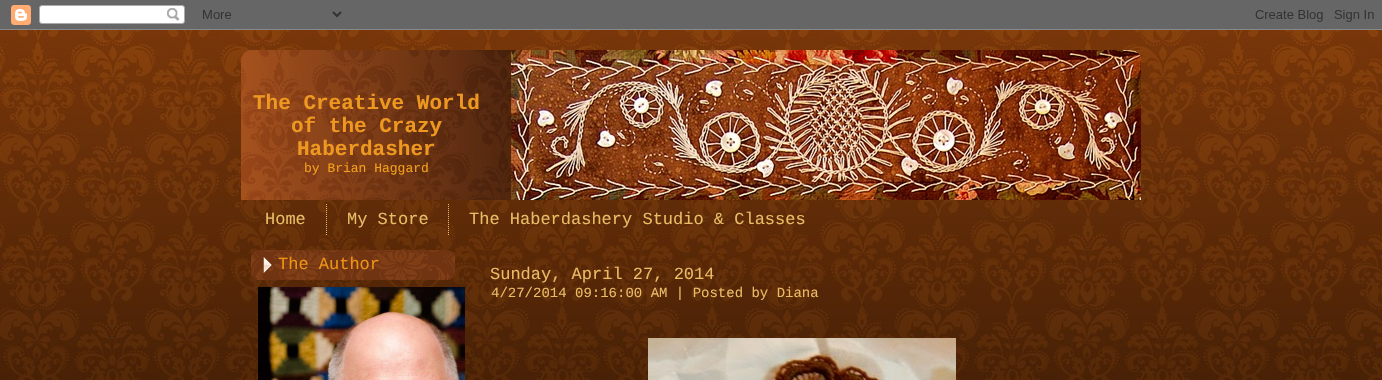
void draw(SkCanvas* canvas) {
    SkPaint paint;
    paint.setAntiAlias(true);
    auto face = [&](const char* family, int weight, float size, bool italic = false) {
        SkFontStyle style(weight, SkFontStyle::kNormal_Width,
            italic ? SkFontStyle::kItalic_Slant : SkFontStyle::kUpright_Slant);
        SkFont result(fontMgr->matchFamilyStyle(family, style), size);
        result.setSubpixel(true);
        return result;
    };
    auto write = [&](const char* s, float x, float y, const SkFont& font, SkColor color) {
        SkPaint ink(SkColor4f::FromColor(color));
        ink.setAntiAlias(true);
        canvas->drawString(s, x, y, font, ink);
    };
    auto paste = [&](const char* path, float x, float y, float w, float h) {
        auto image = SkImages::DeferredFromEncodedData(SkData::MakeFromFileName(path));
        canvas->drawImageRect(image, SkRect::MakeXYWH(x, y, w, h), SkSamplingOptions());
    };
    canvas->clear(SK_ColorBLACK);
    paste("pic1.png", 0, 0, 1382, 30);
    paste("pic2.png", 0, 30, 1382, 350);
    paste("pic3.png", 241, 50, 900, 150);
    paste("pic4.png", 251, 60, 880, 130);
    auto kFont1 = face("Liberation Mono", 700, 21);
    write("The Creative World", 253, 109, kFont1, SkColorSetRGB(238, 152, 32));
    write("of the Crazy", 291, 132, kFont1, SkColorSetRGB(238, 152, 32));
    write("Haberdasher", 297, 155, kFont1, SkColorSetRGB(238, 152, 32));
    auto kFont2 = face("Liberation Mono", 400, 13);
    write("by Brian Haggard", 304, 172, kFont2, SkColorSetRGB(243, 160, 27));
    auto kFont3 = face("Liberation Mono", 400, 17);
    write("Home", 265, 224, kFont3, SkColorSetRGB(234, 188, 102));
    paste("pic5.png", 326, 204, 1, 31);
    write("My Store", 347, 224, kFont3, SkColorSetRGB(234, 188, 102));
    paste("pic6.png", 448, 204, 1, 31);
    write("The Haberdashery Studio & Classes", 469, 224, kFont3, SkColorSetRGB(234, 188, 102));
    paste("pic7.png", 251, 250, 196, 30);
    paste("pic8.png", 447, 250, 8, 30);
    paste("pic9.png", 263, 257, 9, 16);
    write("The Author", 278, 269, kFont3, SkColorSetRGB(238, 148, 23));
    paste("pic10.png", 258, 287, 207, 93);
    write("Sunday, April 27, 2014", 490, 279, kFont3, SkColorSetRGB(234, 188, 102));
    auto kFont4 = face("Liberation Mono", 400, 14);
    write("4/27/2014 09:16:00 AM | Posted by Diana", 491, 297, kFont4, SkColorSetRGB(234, 188, 102));
    paste("pic11.png", 648, 338, 308, 42);
}
